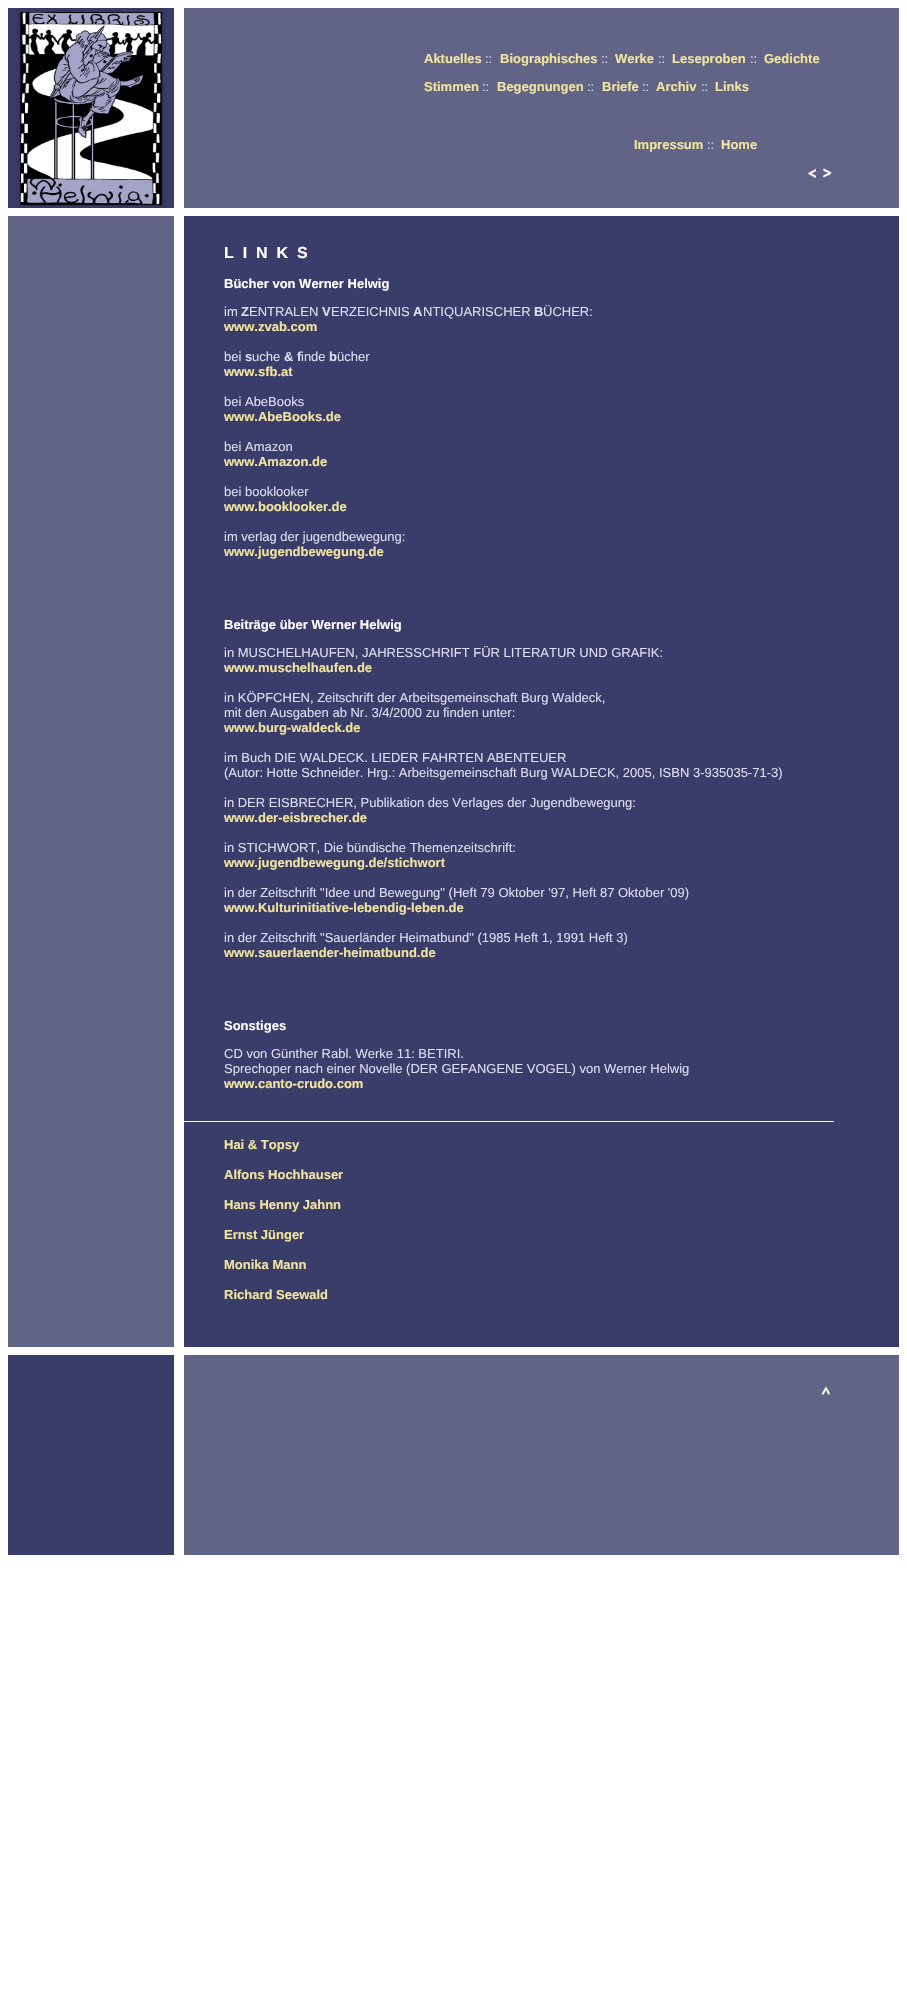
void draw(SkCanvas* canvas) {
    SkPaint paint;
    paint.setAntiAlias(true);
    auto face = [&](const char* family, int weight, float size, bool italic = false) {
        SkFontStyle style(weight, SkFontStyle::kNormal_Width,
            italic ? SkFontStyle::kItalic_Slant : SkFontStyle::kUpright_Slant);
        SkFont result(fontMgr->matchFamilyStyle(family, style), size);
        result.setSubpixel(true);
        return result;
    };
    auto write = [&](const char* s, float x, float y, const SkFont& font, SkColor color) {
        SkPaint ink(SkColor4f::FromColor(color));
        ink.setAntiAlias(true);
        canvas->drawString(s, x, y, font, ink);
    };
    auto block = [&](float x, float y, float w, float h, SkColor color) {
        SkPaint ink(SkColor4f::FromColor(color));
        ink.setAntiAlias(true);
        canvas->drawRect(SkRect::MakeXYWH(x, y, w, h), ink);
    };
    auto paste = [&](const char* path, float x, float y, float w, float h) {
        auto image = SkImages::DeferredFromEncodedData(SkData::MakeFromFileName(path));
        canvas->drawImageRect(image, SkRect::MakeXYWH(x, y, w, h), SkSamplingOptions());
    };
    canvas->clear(SK_ColorWHITE);
    block(8, 8, 166, 200, SkColorSetRGB(58, 60, 105));
    paste("pic1.png", 16, 8, 150, 200);
    block(184, 8, 715, 200, SkColorSetRGB(97, 99, 135));
    auto kFont1 = face("Liberation Sans", 700, 13);
    write("Aktuelles", 424, 63, kFont1, SkColorSetRGB(240, 229, 158));
    auto kFont2 = face("Liberation Sans", 400, 13);
    write("::", 485, 63, kFont2, SkColorSetRGB(220, 222, 242));
    write("Biographisches", 500, 63, kFont1, SkColorSetRGB(240, 229, 158));
    write("::", 601, 63, kFont2, SkColorSetRGB(220, 222, 242));
    write("Werke", 615, 63, kFont1, SkColorSetRGB(240, 229, 158));
    write("::", 658, 63, kFont2, SkColorSetRGB(220, 222, 242));
    write("Leseproben", 672, 63, kFont1, SkColorSetRGB(240, 229, 158));
    write("::", 750, 63, kFont2, SkColorSetRGB(220, 222, 242));
    write("Gedichte", 764, 63, kFont1, SkColorSetRGB(240, 229, 158));
    write("Stimmen", 424, 91, kFont1, SkColorSetRGB(240, 229, 158));
    write("::", 482, 91, kFont2, SkColorSetRGB(220, 222, 242));
    write("Begegnungen", 497, 91, kFont1, SkColorSetRGB(240, 229, 158));
    write("::", 587, 91, kFont2, SkColorSetRGB(220, 222, 242));
    write("Briefe", 602, 91, kFont1, SkColorSetRGB(240, 229, 158));
    write("::", 642, 91, kFont2, SkColorSetRGB(220, 222, 242));
    write("Archiv", 656, 91, kFont1, SkColorSetRGB(240, 229, 158));
    write("::", 701, 91, kFont2, SkColorSetRGB(220, 222, 242));
    write("Links", 715, 91, kFont1, SkColorSetRGB(240, 229, 158));
    write("Impressum", 634, 149, kFont1, SkColorSetRGB(240, 229, 158));
    write("::", 707, 149, kFont2, SkColorSetRGB(220, 222, 242));
    write("Home", 721, 149, kFont1, SkColorSetRGB(240, 229, 158));
    paste("pic2.png", 808, 168, 24, 10);
    block(8, 216, 166, 1131, SkColorSetRGB(97, 99, 135));
    block(184, 216, 715, 1131, SkColorSetRGB(58, 60, 105));
    auto kFont3 = face("Liberation Sans", 700, 16);
    write("L  I  N  K  S", 224, 258, kFont3, SK_ColorWHITE);
    write("Bücher von Werner Helwig", 224, 288, kFont1, SK_ColorWHITE);
    write("im", 224, 316, kFont2, SkColorSetRGB(220, 222, 242));
    write("Z", 241, 316, kFont1, SkColorSetRGB(220, 222, 242));
    write("ENTRALEN", 249, 316, kFont2, SkColorSetRGB(220, 222, 242));
    write("V", 322, 316, kFont1, SkColorSetRGB(220, 222, 242));
    write("ERZEICHNIS", 331, 316, kFont2, SkColorSetRGB(220, 222, 242));
    write("A", 413, 316, kFont1, SkColorSetRGB(220, 222, 242));
    write("NTIQUARISCHER", 423, 316, kFont2, SkColorSetRGB(220, 222, 242));
    write("B", 534, 316, kFont1, SkColorSetRGB(220, 222, 242));
    write("ÜCHER:", 543, 316, kFont2, SkColorSetRGB(220, 222, 242));
    write("www.zvab.com", 224, 331, kFont1, SkColorSetRGB(240, 229, 158));
    write("bei", 224, 361, kFont2, SkColorSetRGB(220, 222, 242));
    write("s", 245, 361, kFont1, SkColorSetRGB(220, 222, 242));
    write("uche", 252, 361, kFont2, SkColorSetRGB(220, 222, 242));
    write("& f", 284, 361, kFont1, SkColorSetRGB(220, 222, 242));
    write("inde", 301, 361, kFont2, SkColorSetRGB(220, 222, 242));
    write("b", 329, 361, kFont1, SkColorSetRGB(220, 222, 242));
    write("ücher", 337, 361, kFont2, SkColorSetRGB(220, 222, 242));
    write("www.sfb.at", 224, 376, kFont1, SkColorSetRGB(240, 229, 158));
    write("bei AbeBooks", 224, 406, kFont2, SkColorSetRGB(220, 222, 242));
    write("www.AbeBooks.de", 224, 421, kFont1, SkColorSetRGB(240, 229, 158));
    write("bei Amazon", 224, 451, kFont2, SkColorSetRGB(220, 222, 242));
    write("www.Amazon.de", 224, 466, kFont1, SkColorSetRGB(240, 229, 158));
    write("bei booklooker", 224, 496, kFont2, SkColorSetRGB(220, 222, 242));
    write("www.booklooker.de", 224, 511, kFont1, SkColorSetRGB(240, 229, 158));
    write("im verlag der jugendbewegung:", 224, 541, kFont2, SkColorSetRGB(220, 222, 242));
    write("www.jugendbewegung.de", 224, 556, kFont1, SkColorSetRGB(240, 229, 158));
    write("Beiträge über Werner Helwig", 224, 629, kFont1, SK_ColorWHITE);
    write("in MUSCHELHAUFEN, JAHRESSCHRIFT FÜR LITERATUR UND GRAFIK:", 224, 657, kFont2, SkColorSetRGB(220, 222, 242));
    write("www.muschelhaufen.de", 224, 672, kFont1, SkColorSetRGB(240, 229, 158));
    write("in KÖPFCHEN, Zeitschrift der Arbeitsgemeinschaft Burg Waldeck,", 224, 702, kFont2, SkColorSetRGB(220, 222, 242));
    write("mit den Ausgaben ab Nr. 3/4/2000 zu finden unter:", 224, 717, kFont2, SkColorSetRGB(220, 222, 242));
    write("www.burg-waldeck.de", 224, 732, kFont1, SkColorSetRGB(240, 229, 158));
    write("im Buch DIE WALDECK. LIEDER FAHRTEN ABENTEUER", 224, 762, kFont2, SkColorSetRGB(220, 222, 242));
    write("(Autor: Hotte Schneider. Hrg.: Arbeitsgemeinschaft Burg WALDECK, 2005, ISBN 3-935035-71-3)", 224, 777, kFont2, SkColorSetRGB(220, 222, 242));
    write("in DER EISBRECHER, Publikation des Verlages der Jugendbewegung:", 224, 807, kFont2, SkColorSetRGB(220, 222, 242));
    write("www.der-eisbrecher.de", 224, 822, kFont1, SkColorSetRGB(240, 229, 158));
    write("in STICHWORT, Die bündische Themenzeitschrift:", 224, 852, kFont2, SkColorSetRGB(220, 222, 242));
    write("www.jugendbewegung.de/stichwort", 224, 867, kFont1, SkColorSetRGB(240, 229, 158));
    write("in der Zeitschrift \"Idee und Bewegung\" (Heft 79 Oktober '97, Heft 87 Oktober '09)", 224, 897, kFont2, SkColorSetRGB(220, 222, 242));
    write("www.Kulturinitiative-lebendig-leben.de", 224, 912, kFont1, SkColorSetRGB(240, 229, 158));
    write("in der Zeitschrift \"Sauerländer Heimatbund\" (1985 Heft 1, 1991 Heft 3)", 224, 942, kFont2, SkColorSetRGB(220, 222, 242));
    write("www.sauerlaender-heimatbund.de", 224, 957, kFont1, SkColorSetRGB(240, 229, 158));
    write("Sonstiges", 224, 1030, kFont1, SK_ColorWHITE);
    write("CD von Günther Rabl. Werke 11: BETIRI.", 224, 1058, kFont2, SkColorSetRGB(220, 222, 242));
    write("Sprechoper nach einer Novelle (DER GEFANGENE VOGEL) von Werner Helwig", 224, 1073, kFont2, SkColorSetRGB(220, 222, 242));
    write("www.canto-crudo.com", 224, 1088, kFont1, SkColorSetRGB(240, 229, 158));
    block(184, 1121, 650, 1, SK_ColorWHITE);
    write("Hai & Topsy", 224, 1149, kFont1, SkColorSetRGB(240, 229, 158));
    write("Alfons Hochhauser", 224, 1179, kFont1, SkColorSetRGB(240, 229, 158));
    write("Hans Henny Jahnn", 224, 1209, kFont1, SkColorSetRGB(240, 229, 158));
    write("Ernst Jünger", 224, 1239, kFont1, SkColorSetRGB(240, 229, 158));
    write("Monika Mann", 224, 1269, kFont1, SkColorSetRGB(240, 229, 158));
    write("Richard Seewald", 224, 1299, kFont1, SkColorSetRGB(240, 229, 158));
    block(8, 1355, 166, 200, SkColorSetRGB(58, 60, 105));
    block(184, 1355, 715, 200, SkColorSetRGB(97, 99, 135));
    paste("pic3.png", 821, 1386, 9, 9);
}
